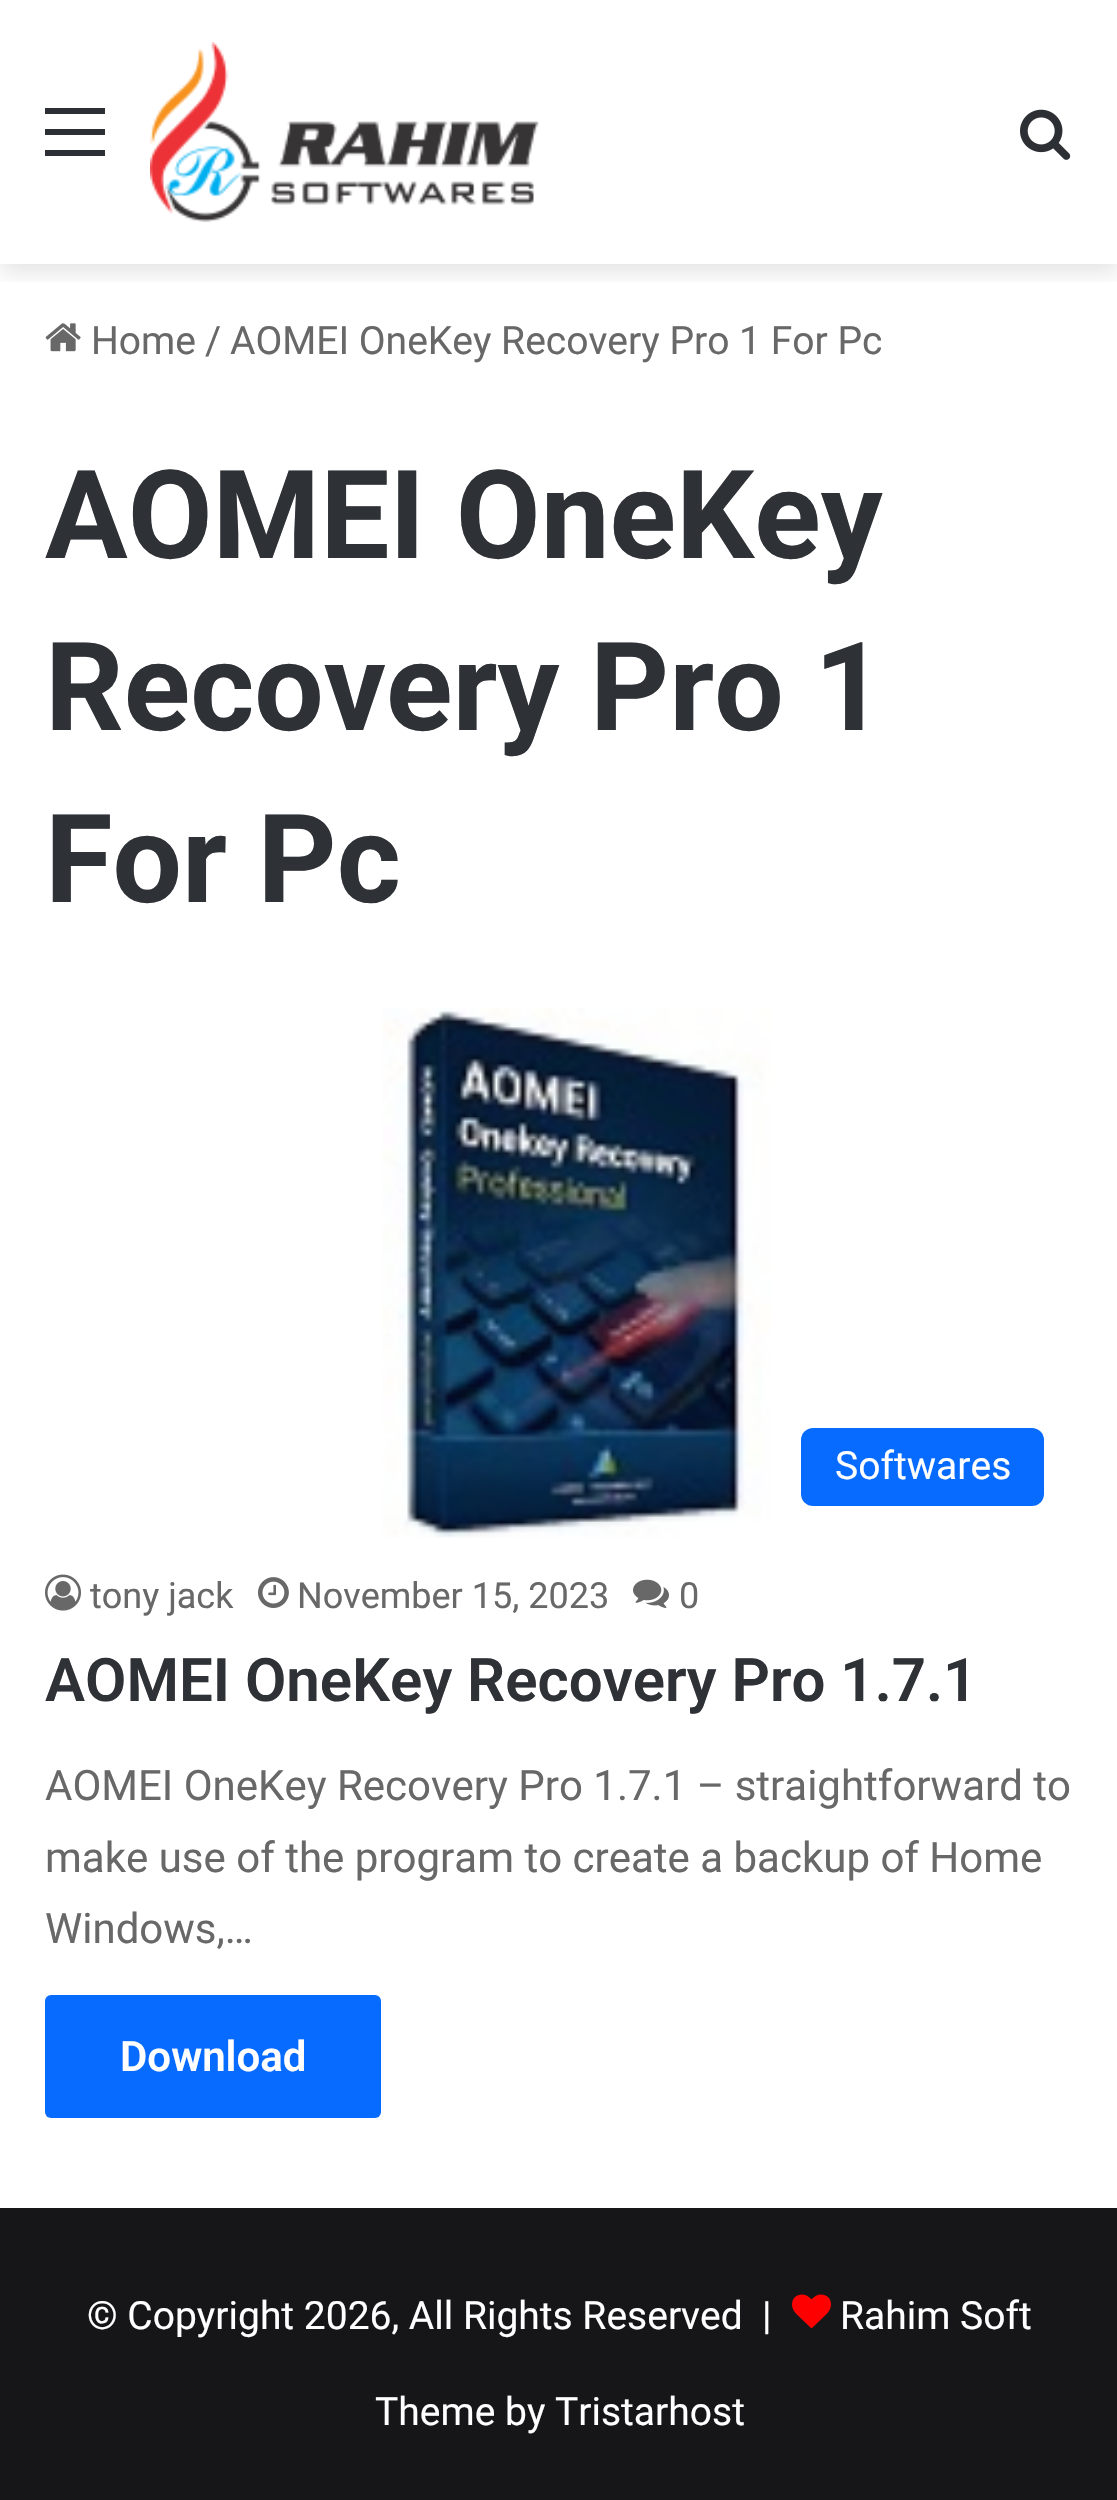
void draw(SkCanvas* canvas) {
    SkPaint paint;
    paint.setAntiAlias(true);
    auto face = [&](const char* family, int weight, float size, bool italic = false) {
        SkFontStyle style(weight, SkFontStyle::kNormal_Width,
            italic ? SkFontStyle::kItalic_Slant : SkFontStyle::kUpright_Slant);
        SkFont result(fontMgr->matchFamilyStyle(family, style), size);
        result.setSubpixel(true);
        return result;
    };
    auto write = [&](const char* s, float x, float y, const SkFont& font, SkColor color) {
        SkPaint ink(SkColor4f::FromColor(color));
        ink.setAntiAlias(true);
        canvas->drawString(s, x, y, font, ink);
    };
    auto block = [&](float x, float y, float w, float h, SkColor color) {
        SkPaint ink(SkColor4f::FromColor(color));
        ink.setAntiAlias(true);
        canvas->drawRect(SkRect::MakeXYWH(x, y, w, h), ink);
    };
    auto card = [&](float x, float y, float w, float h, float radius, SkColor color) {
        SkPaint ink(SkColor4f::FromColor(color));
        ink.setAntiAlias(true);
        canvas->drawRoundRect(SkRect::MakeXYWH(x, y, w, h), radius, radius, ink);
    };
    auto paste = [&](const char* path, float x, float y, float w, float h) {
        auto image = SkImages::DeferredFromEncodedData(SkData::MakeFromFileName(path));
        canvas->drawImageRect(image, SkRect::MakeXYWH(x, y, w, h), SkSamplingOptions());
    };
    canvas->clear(SK_ColorWHITE);
    canvas->save();
    canvas->clipRect(SkRect::MakeXYWH(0, 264, 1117, 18));
    paint.setColor(SkColorSetARGB(26, 0, 0, 0));
    paint.setMaskFilter(SkMaskFilter::MakeBlur(kNormal_SkBlurStyle, 10.5f));
    canvas->drawRect(SkRect::MakeXYWH(0, 9, 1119, 264), paint);
    paint.setMaskFilter(nullptr);
    canvas->restore();
    block(45, 129, 60, 6, SkColorSetRGB(44, 47, 52));
    block(45, 108, 60, 6, SkColorSetRGB(44, 47, 52));
    block(45, 150, 60, 6, SkColorSetRGB(44, 47, 52));
    paste("pic1.png", 150, 42, 389, 180);
    paste("pic2.png", 1020, 109, 51, 51);
    paste("pic3.png", 45, 323, 36, 29);
    auto kFont1 = face("Roboto", 400, 39);
    write("Home", 91, 354, kFont1, SkColorSetRGB(104, 104, 104));
    write("/", 205, 354, kFont1, SkColorSetRGB(104, 104, 104));
    write("AOMEI OneKey Recovery Pro 1 For Pc", 230, 354, kFont1, SkColorSetRGB(104, 104, 104));
    auto kFont2 = face("Roboto", 700, 123);
    write("AOMEI OneKey", 45, 558, kFont2, SkColorSetRGB(46, 49, 54));
    write("Recovery Pro 1", 45, 730, kFont2, SkColorSetRGB(46, 49, 54));
    write("For Pc", 45, 902, kFont2, SkColorSetRGB(46, 49, 54));
    paste("pic4.png", 382, 1008, 389, 530);
    card(801, 1428, 243, 78, 12, SkColorSetRGB(8, 107, 255));
    write("Softwares", 835, 1479, kFont1, SK_ColorWHITE);
    paste("pic5.png", 45, 1574, 36, 37);
    auto kFont3 = face("Roboto", 400, 36);
    write("tony jack", 90, 1608, kFont3, SkColorSetRGB(104, 104, 104));
    paste("pic6.png", 258, 1577, 31, 31);
    write("November 15, 2023", 297, 1608, kFont3, SkColorSetRGB(104, 104, 104));
    paste("pic7.png", 633, 1579, 36, 29);
    write("0", 679, 1608, kFont3, SkColorSetRGB(104, 104, 104));
    auto kFont4 = face("Roboto", 600, 60);
    write("AOMEI OneKey Recovery Pro 1.7.1", 45, 1701, kFont4, SkColorSetRGB(46, 49, 54));
    auto kFont5 = face("Roboto", 400, 42);
    write("AOMEI OneKey Recovery Pro 1.7.1 – straightforward to", 45, 1800, kFont5, SkColorSetRGB(104, 104, 104));
    write("make use of the program to create a backup of Home", 45, 1872, kFont5, SkColorSetRGB(104, 104, 104));
    write("Windows,…", 45, 1943, kFont5, SkColorSetRGB(104, 104, 104));
    card(45, 1995, 336, 123, 6, SkColorSetRGB(8, 107, 255));
    auto kFont6 = face("Roboto", 600, 42);
    write("Download", 120, 2071, kFont6, SK_ColorWHITE);
    block(0, 2208, 1117, 292, SkColorSetRGB(22, 22, 25));
    write("© Copyright 2026, All Rights Reserved  |", 87, 2329, kFont1, SK_ColorWHITE);
    paste("pic8.png", 792, 2294, 39, 34);
    write("Rahim Soft", 840, 2329, kFont1, SK_ColorWHITE);
    write("Theme by Tristarhost", 375, 2425, kFont1, SK_ColorWHITE);
}
